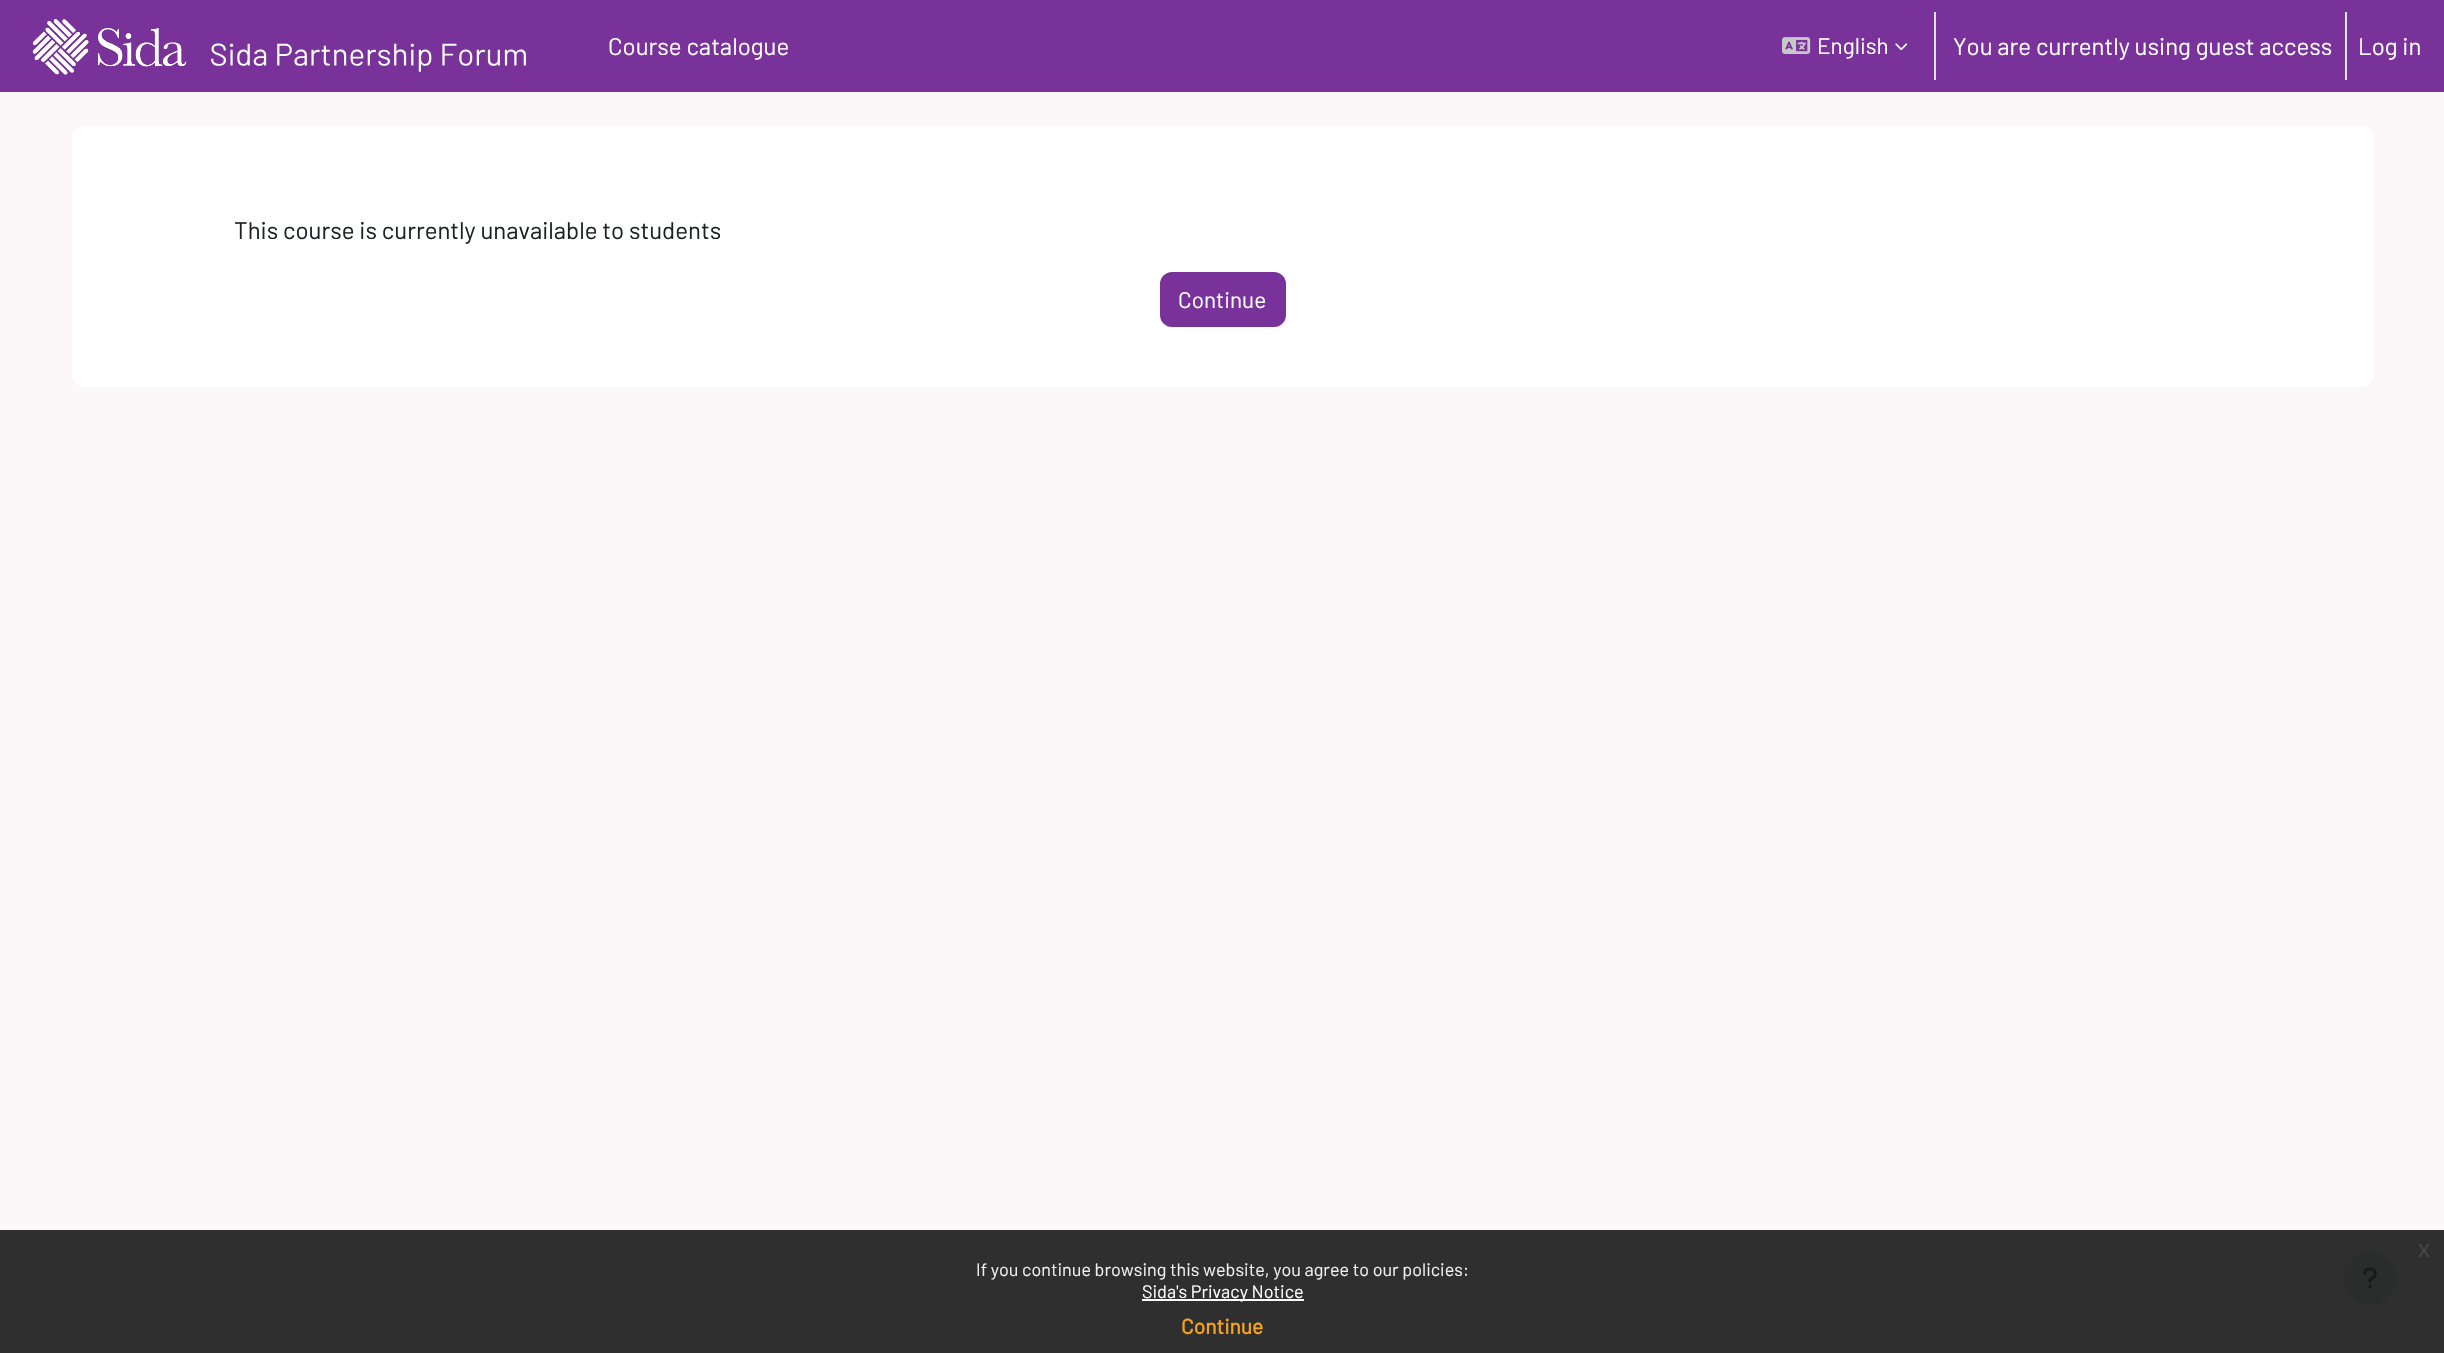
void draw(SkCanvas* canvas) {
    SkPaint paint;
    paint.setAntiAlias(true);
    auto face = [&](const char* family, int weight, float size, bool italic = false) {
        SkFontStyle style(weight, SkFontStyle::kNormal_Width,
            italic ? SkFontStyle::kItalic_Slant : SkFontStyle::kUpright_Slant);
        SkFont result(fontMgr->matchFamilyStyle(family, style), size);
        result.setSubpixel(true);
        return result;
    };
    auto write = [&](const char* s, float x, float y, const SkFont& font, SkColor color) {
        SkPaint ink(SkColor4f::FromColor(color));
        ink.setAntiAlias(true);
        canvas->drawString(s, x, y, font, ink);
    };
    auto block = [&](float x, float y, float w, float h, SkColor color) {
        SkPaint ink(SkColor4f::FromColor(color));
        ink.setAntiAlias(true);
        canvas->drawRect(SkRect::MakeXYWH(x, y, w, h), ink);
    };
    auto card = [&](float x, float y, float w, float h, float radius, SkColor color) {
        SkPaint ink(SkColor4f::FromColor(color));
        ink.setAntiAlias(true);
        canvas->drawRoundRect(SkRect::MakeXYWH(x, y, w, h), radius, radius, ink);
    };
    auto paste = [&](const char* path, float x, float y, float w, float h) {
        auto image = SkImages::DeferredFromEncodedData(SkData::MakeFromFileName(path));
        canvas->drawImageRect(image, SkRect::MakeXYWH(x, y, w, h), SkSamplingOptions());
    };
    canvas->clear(SkColorSetRGB(252, 248, 250));
    block(0, 1230, 2444, 123, SkColorSetRGB(48, 47, 47));
    block(0, 0, 2444, 92, SkColorSetRGB(121, 50, 153));
    paste("pic1.png", 32, 19, 494, 56);
    auto kFont1 = face("Barlow", 400, 24);
    write("Course catalogue", 608, 55, kFont1, SK_ColorWHITE);
    paste("pic2.png", 1782, 37, 29, 17);
    auto kFont2 = face("Barlow", 400, 22.5f);
    write("English", 1817, 54, kFont2, SK_ColorWHITE);
    paste("pic3.png", 1895, 43, 13, 8);
    block(1934, 12, 2, 68, SkColorSetRGB(222, 226, 230));
    write("You are currently using guest access", 1953, 55, kFont1, SK_ColorWHITE);
    block(2345, 12, 2, 68, SkColorSetRGB(222, 226, 230));
    write("Log in", 2358, 55, kFont1, SK_ColorWHITE);
    card(72, 126, 2301, 261, 12, SK_ColorWHITE);
    write("This course is currently unavailable to students", 234, 239, kFont1, SkColorSetRGB(29, 33, 37));
    paint.setColor(SkColorSetRGB(121, 50, 153));
    canvas->drawRoundRect(SkRect::MakeXYWH(1161, 273, 124, 53), 11, 11, paint);
    paint.setStyle(SkPaint::kStroke_Style);
    paint.setStrokeWidth(2);
    canvas->drawRoundRect(SkRect::MakeXYWH(1161, 273, 124, 53), 11, 11, paint);
    write("Continue", 1178, 308, kFont2, SK_ColorWHITE);
    paint.setStyle(SkPaint::kFill_Style);
    paint.setColor(SkColorSetRGB(43, 44, 44));
    canvas->drawCircle(2370, 1278, 27, paint);
    paste("pic4.png", 2363, 1267, 14, 22);
    auto kFont3 = face("Liberation Sans", 400, 24);
    write("x", 2418, 1257, kFont3, SkColorSetRGB(71, 70, 70));
    auto kFont4 = face("Barlow", 400, 18);
    write("If you continue browsing this website, you agree to our policies:", 976, 1276, kFont4, SkColorSetRGB(239, 239, 239));
    block(1142, 1299, 162, 2, SK_ColorWHITE);
    write("Sida's Privacy Notice", 1142, 1298, kFont4, SK_ColorWHITE);
    auto kFont5 = face("Barlow", 700, 21);
    write("Continue", 1181, 1334, kFont5, SkColorSetRGB(246, 162, 29));
}
